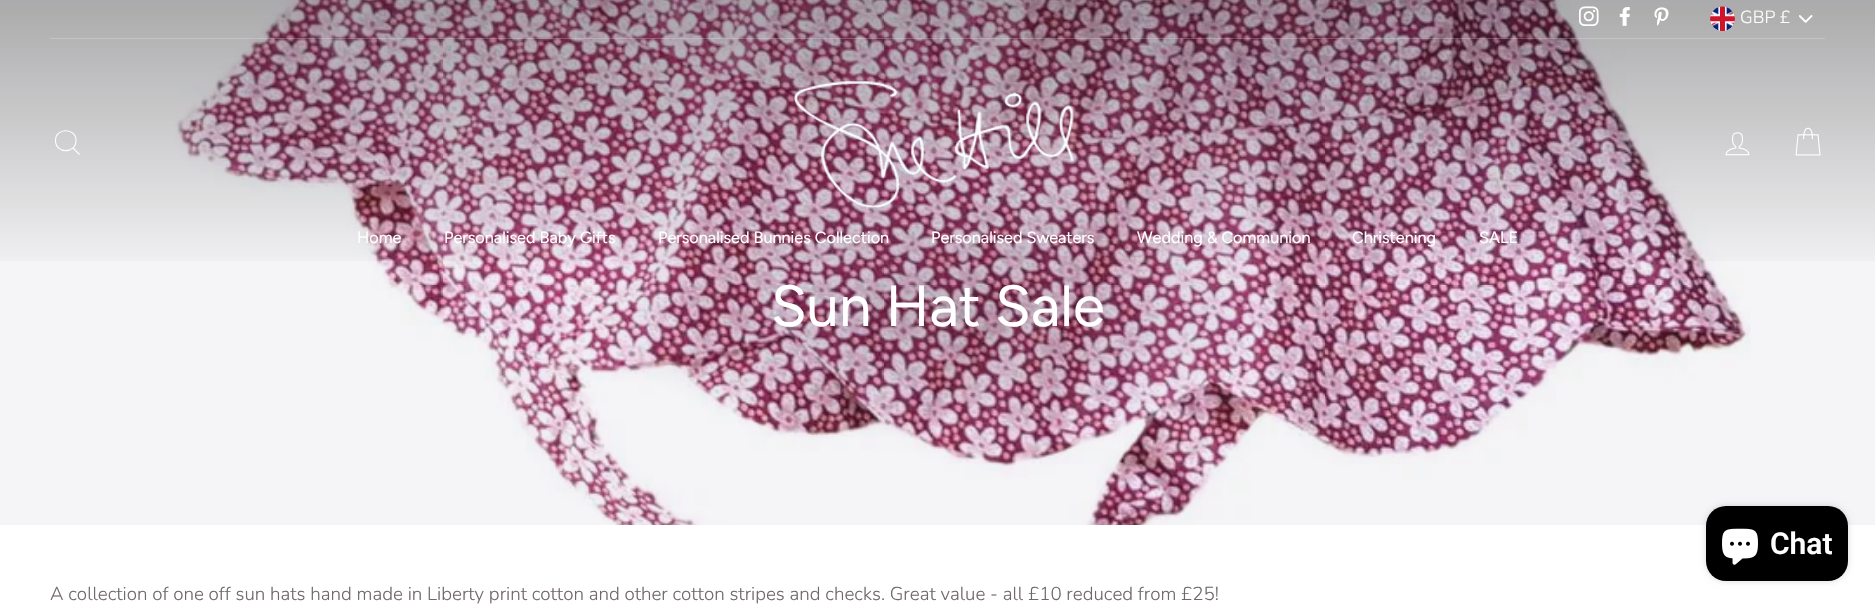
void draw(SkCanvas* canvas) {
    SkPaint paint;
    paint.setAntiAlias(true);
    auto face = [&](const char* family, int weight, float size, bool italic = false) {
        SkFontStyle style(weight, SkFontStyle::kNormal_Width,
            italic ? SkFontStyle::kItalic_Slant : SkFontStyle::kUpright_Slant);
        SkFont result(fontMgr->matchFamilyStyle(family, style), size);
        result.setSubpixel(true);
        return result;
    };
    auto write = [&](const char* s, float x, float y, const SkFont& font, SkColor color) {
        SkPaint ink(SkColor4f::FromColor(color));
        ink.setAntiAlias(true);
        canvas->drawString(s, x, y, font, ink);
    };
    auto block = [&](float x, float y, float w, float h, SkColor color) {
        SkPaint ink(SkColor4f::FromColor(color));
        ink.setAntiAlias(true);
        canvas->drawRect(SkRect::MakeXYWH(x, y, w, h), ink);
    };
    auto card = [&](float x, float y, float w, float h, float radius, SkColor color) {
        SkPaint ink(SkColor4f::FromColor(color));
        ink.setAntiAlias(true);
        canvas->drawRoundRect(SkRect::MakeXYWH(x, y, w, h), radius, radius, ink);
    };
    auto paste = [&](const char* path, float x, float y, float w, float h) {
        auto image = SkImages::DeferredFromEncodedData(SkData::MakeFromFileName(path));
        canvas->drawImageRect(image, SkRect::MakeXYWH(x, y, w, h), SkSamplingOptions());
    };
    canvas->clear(SK_ColorWHITE);
    block(0, 0, 1875, 525, SkColorSetRGB(245, 244, 246));
    paste("pic9.png", 175, 0, 1576, 525);
    {
        const SkColor colors[] = {SkColorSetARGB(77, 0, 0, 0), SkColorSetARGB(0, 0, 0, 0)};
        const float stops[] = {0, 1};
        const SkPoint ends[] = {{938, 0}, {938, 281}};
        paint.setShader(SkGradientShader::MakeLinear(ends, colors, stops, 2, SkTileMode::kClamp));
        paint.setAlpha(255);
    }
    canvas->drawRect(SkRect::MakeXYWH(0, 0, 1875, 261), paint);
    block(50, 38, 1775, 1, SkColorSetARGB(51, 255, 255, 255));
    paste("pic1.png", 1579, 6, 20, 20);
    paste("pic2.png", 1619, 7, 11, 19);
    paste("pic3.png", 1654, 7, 15, 19);
    paste("pic4.png", 1799, 15, 14, 8);
    paste("pic5.png", 1710, 6, 25, 26);
    auto kFont1 = face("Nunito", 300, 17.5f);
    write("GBP £", 1740, 23, kFont1, SK_ColorWHITE);
    paint.setStyle(SkPaint::kStroke_Style);
    paint.setStrokeWidth(1.1f);
    paint.setShader(nullptr);
    paint.setColor(SK_ColorWHITE);
    canvas->drawPath(SkPathBuilder().moveTo(76, 140.5f).cubicTo(76, 154, 55.5f, 154, 55.5f, 140.5f).cubicTo(55.5f, 127.5f, 76, 127.5f, 76, 140.5f).close().moveTo(79.5f, 154.5f).lineTo(73, 148).detach(), paint);
    paste("pic6.png", 793, 80, 282, 128);
    paste("pic7.png", 1725, 132, 25, 24);
    paste("pic8.png", 1795, 127, 26, 29);
    auto kFont2 = face("Figtree", 400, 16.25f);
    write("Home", 357, 243, kFont2, SK_ColorWHITE);
    write("Personalised Baby Gifts", 444, 243, kFont2, SK_ColorWHITE);
    write("Personalised Bunnies Collection", 658, 243, kFont2, SK_ColorWHITE);
    write("Personalised Sweaters", 931, 243, kFont2, SK_ColorWHITE);
    write("Wedding & Communion", 1137, 243, kFont2, SK_ColorWHITE);
    write("Christening", 1352, 243, kFont2, SK_ColorWHITE);
    write("SALE", 1479, 243, kFont2, SK_ColorWHITE);
    auto kFont3 = face("Figtree", 400, 58);
    write("Sun Hat Sale", 771, 326, kFont3, SK_ColorWHITE);
    auto kFont4 = face("Nunito", 300, 18.75f);
    write("A collection of one off sun hats hand made in Liberty print cotton and other cotton stripes and checks. Great value - all £10 reduced from £25!", 50, 600, kFont4, SkColorSetRGB(113, 105, 105));
    paint.setStyle(SkPaint::kFill_Style);
    paint.setColor(SkColorSetARGB(38, 0, 0, 0));
    paint.setMaskFilter(SkMaskFilter::MakeBlur(kNormal_SkBlurStyle, 3));
    canvas->drawRoundRect(SkRect::MakeXYWH(1706, 506, 142, 75), 20, 20, paint);
    paint.setMaskFilter(nullptr);
    card(1706, 506, 142, 75, 20, SK_ColorBLACK);
    paste("pic10.png", 1722, 528, 36, 37);
    auto kFont5 = face("Roboto", 600, 30);
    write("Chat", 1770, 554, kFont5, SK_ColorWHITE);
}
